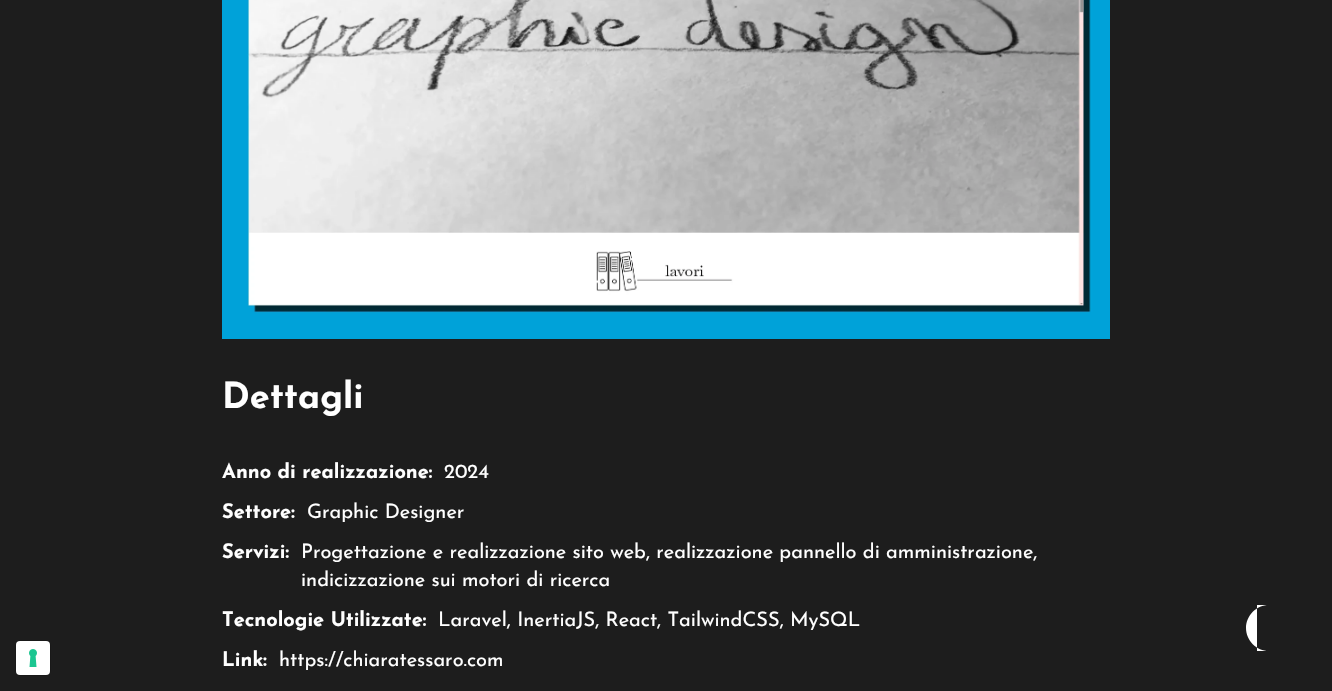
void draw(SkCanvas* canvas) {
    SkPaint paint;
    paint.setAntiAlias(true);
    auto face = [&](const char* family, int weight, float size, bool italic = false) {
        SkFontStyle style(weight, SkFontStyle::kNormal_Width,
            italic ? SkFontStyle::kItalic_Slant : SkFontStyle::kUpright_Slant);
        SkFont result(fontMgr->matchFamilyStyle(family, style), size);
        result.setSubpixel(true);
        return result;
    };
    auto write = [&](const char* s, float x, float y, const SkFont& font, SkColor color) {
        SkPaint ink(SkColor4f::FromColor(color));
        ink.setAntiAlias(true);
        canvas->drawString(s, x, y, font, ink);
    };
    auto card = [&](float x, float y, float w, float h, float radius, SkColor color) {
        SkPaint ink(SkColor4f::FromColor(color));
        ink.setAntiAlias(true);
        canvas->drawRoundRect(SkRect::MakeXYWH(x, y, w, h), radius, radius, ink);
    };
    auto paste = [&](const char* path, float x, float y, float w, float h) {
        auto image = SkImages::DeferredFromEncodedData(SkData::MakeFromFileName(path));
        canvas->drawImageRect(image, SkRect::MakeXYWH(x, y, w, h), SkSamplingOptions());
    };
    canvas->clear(SkColorSetRGB(29, 29, 29));
    paint.setStyle(SkPaint::kStroke_Style);
    paint.setStrokeWidth(1);
    paint.setColor(SkColorSetRGB(25, 25, 25));
    canvas->drawRoundRect(SkRect::MakeXYWH(15.5f, 640.5f, 35, 35), 4.5f, 4.5f, paint);
    card(16, 641, 34, 34, 4, SK_ColorWHITE);
    paste("pic1.png", 29, 649, 8, 18);
    paste("pic2.png", 222, 0, 888, 339);
    auto kFont1 = face("Josefin Sans", 700, 36);
    write("Dettagli", 222, 408, kFont1, SK_ColorWHITE);
    auto kFont2 = face("Josefin Sans", 700, 20);
    write("Anno di realizzazione:", 222, 478, kFont2, SK_ColorWHITE);
    auto kFont3 = face("Josefin Sans", 400, 20);
    write("2024", 444, 478, kFont3, SK_ColorWHITE);
    write("Settore:", 222, 518, kFont2, SK_ColorWHITE);
    write("Graphic Designer", 307, 518, kFont3, SK_ColorWHITE);
    write("Servizi:", 222, 558, kFont2, SK_ColorWHITE);
    write("Progettazione e realizzazione sito web, realizzazione pannello di amministrazione,", 301, 558, kFont3, SK_ColorWHITE);
    write("indicizzazione sui motori di ricerca", 301, 586, kFont3, SK_ColorWHITE);
    write("Tecnologie Utilizzate:", 222, 626, kFont2, SK_ColorWHITE);
    write("Laravel, InertiaJS, React, TailwindCSS, MySQL", 438, 626, kFont3, SK_ColorWHITE);
    write("Link:", 222, 666, kFont2, SK_ColorWHITE);
    write("https://chiaratessaro.com", 279, 666, kFont3, SK_ColorWHITE);
    paint.setStyle(SkPaint::kFill_Style);
    paint.setColor(SK_ColorWHITE);
    canvas->drawPath(SkPathBuilder().moveTo(1269, 605).lineTo(1257, 605).lineTo(1257, 651).lineTo(1269, 651).cubicTo(1256.5f, 651, 1246, 640.5f, 1246, 628).cubicTo(1246, 615.5f, 1256.5f, 605, 1269, 605).close().detach(), paint);
}
